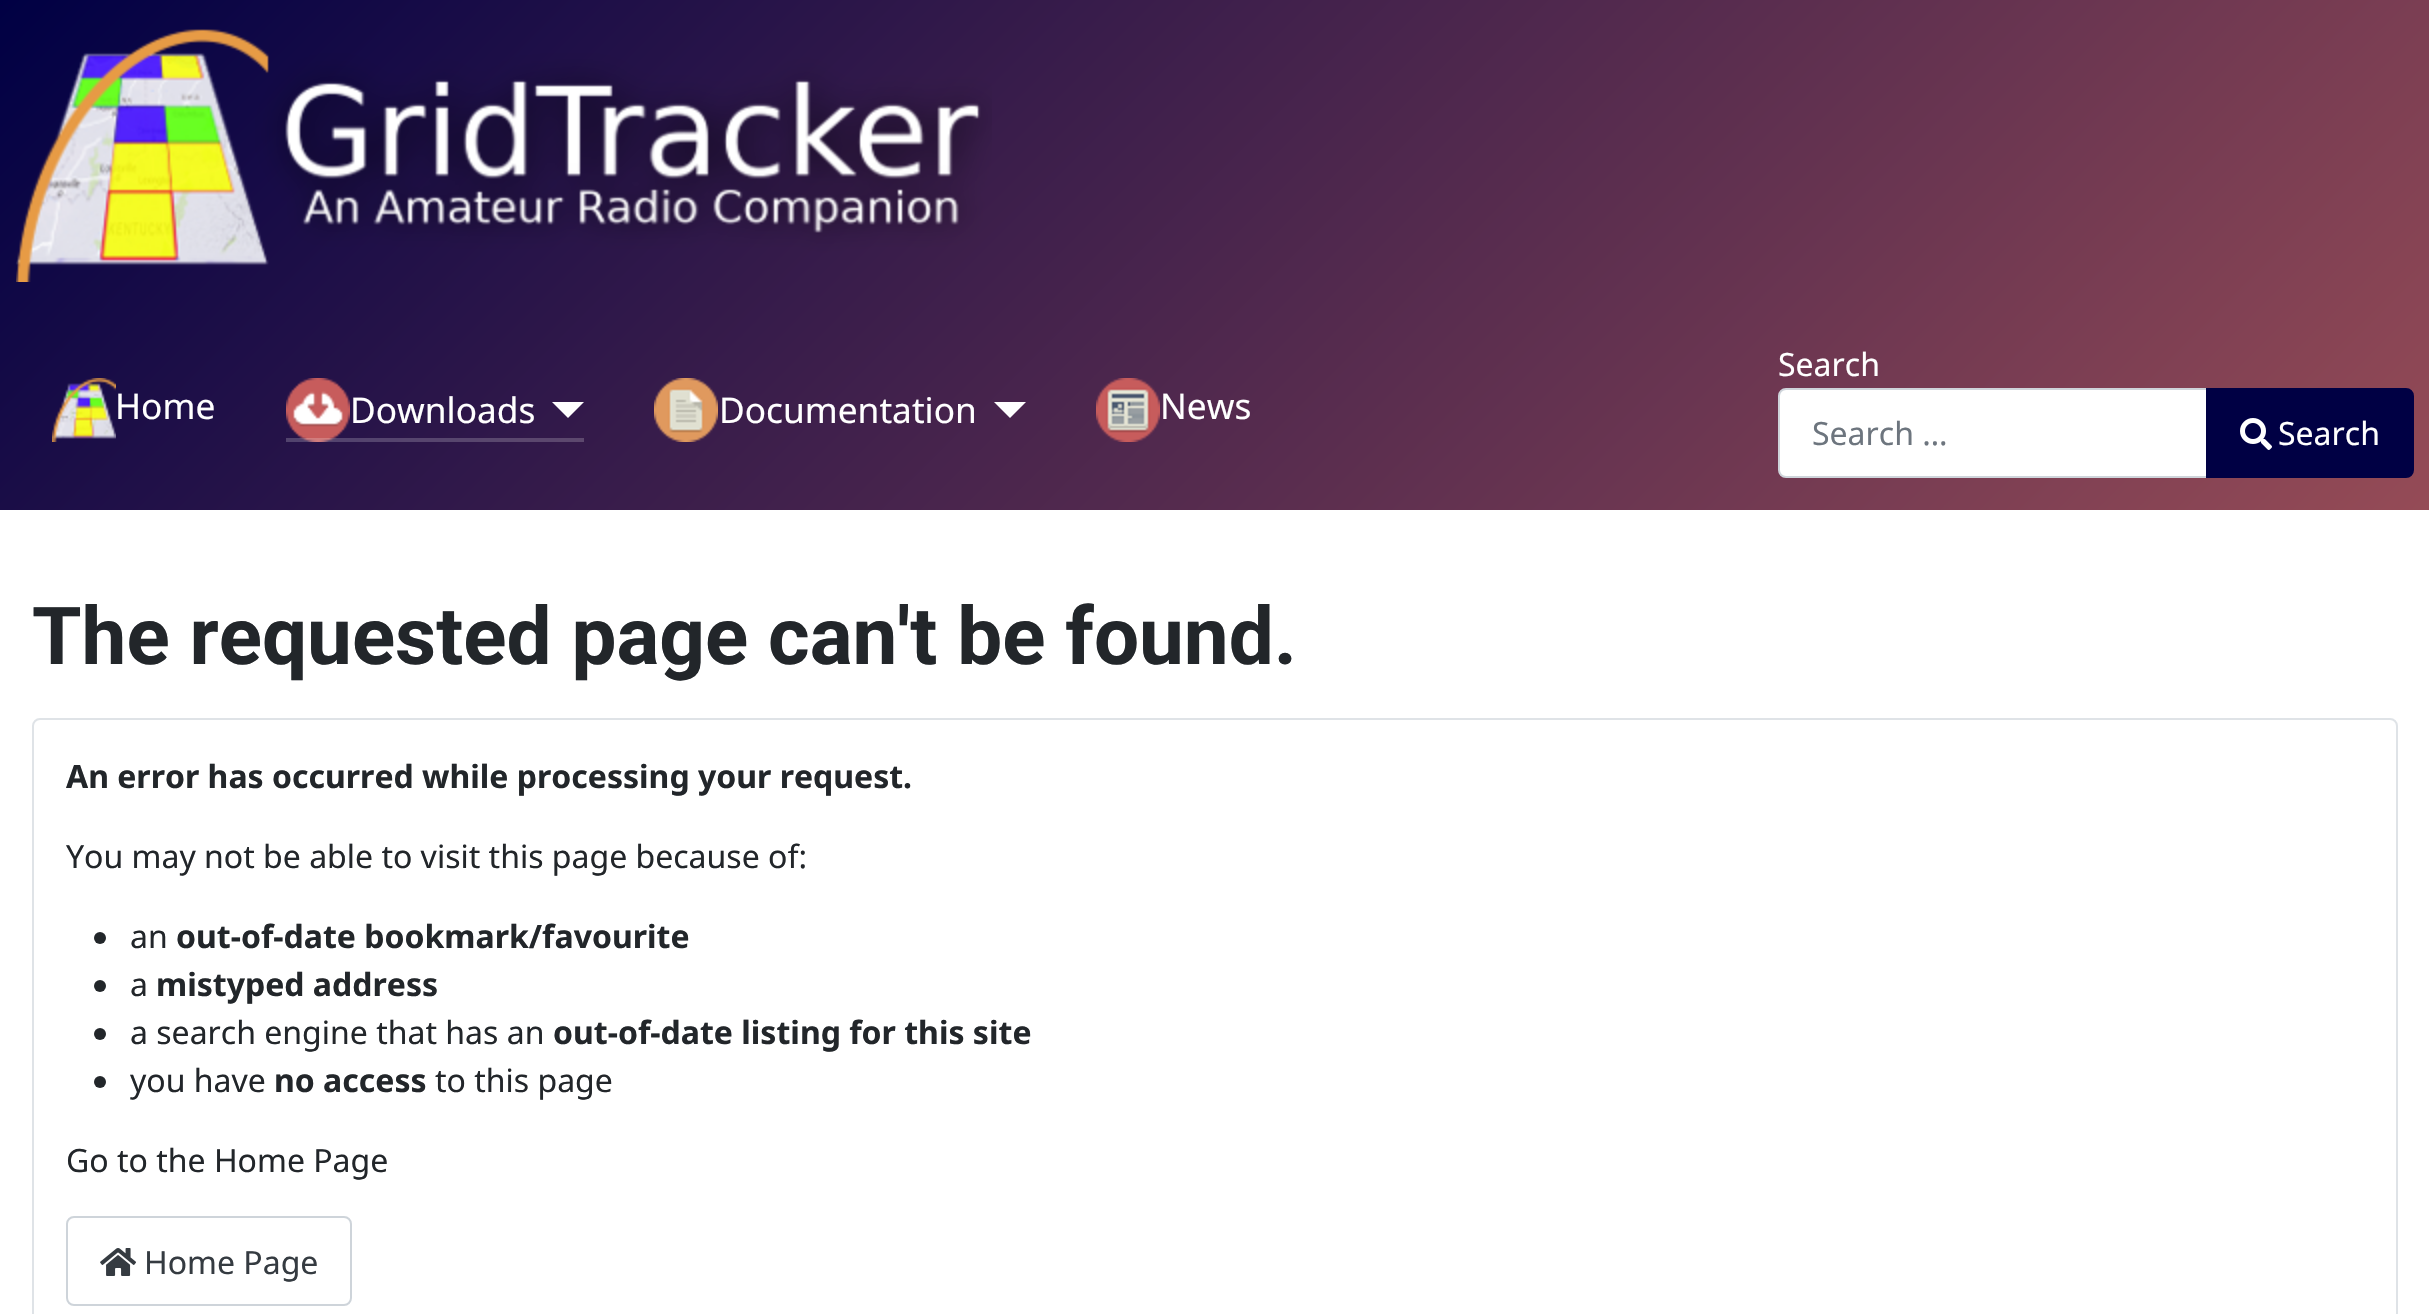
void draw(SkCanvas* canvas) {
    SkPaint paint;
    paint.setAntiAlias(true);
    auto face = [&](const char* family, int weight, float size, bool italic = false) {
        SkFontStyle style(weight, SkFontStyle::kNormal_Width,
            italic ? SkFontStyle::kItalic_Slant : SkFontStyle::kUpright_Slant);
        SkFont result(fontMgr->matchFamilyStyle(family, style), size);
        result.setSubpixel(true);
        return result;
    };
    auto write = [&](const char* s, float x, float y, const SkFont& font, SkColor color) {
        SkPaint ink(SkColor4f::FromColor(color));
        ink.setAntiAlias(true);
        canvas->drawString(s, x, y, font, ink);
    };
    auto block = [&](float x, float y, float w, float h, SkColor color) {
        SkPaint ink(SkColor4f::FromColor(color));
        ink.setAntiAlias(true);
        canvas->drawRect(SkRect::MakeXYWH(x, y, w, h), ink);
    };
    auto paste = [&](const char* path, float x, float y, float w, float h) {
        auto image = SkImages::DeferredFromEncodedData(SkData::MakeFromFileName(path));
        canvas->drawImageRect(image, SkRect::MakeXYWH(x, y, w, h), SkSamplingOptions());
    };
    canvas->clear(SK_ColorWHITE);
    {
        const SkColor colors[] = {SkColorSetRGB(0, 0, 68), SkColorSetRGB(149, 75, 86)};
        const float stops[] = {0, 1};
        const SkPoint ends[] = {{480, -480}, {1950, 990}};
        paint.setShader(SkGradientShader::MakeLinear(ends, colors, stops, 2, SkTileMode::kClamp));
        paint.setAlpha(255);
    }
    canvas->drawRect(SkRect::MakeXYWH(0, 0, 2429, 510), paint);
    paste("pic1.png", 16, 29, 976, 253);
    paste("pic2.png", 52, 378, 64, 64);
    auto kFont1 = face("Noto Sans", 400, 35.25f);
    write("Home", 115, 419, kFont1, SK_ColorWHITE);
    paste("pic3.png", 286, 378, 64, 64);
    write("Downloads", 350, 423, kFont1, SK_ColorWHITE);
    paint.setShader(nullptr);
    paint.setColor(SK_ColorWHITE);
    canvas->drawPath(SkPathBuilder().moveTo(552, 402).lineTo(584, 402).lineTo(568, 418).close().detach(), paint);
    block(286, 438, 298, 4, SkColorSetARGB(51, 255, 255, 255));
    paste("pic4.png", 654, 378, 64, 64);
    write("Documentation", 719, 423, kFont1, SK_ColorWHITE);
    canvas->drawPath(SkPathBuilder().moveTo(994, 402).lineTo(1026, 402).lineTo(1010, 418).close().detach(), paint);
    paste("pic5.png", 1096, 378, 64, 64);
    write("News", 1160, 419, kFont1, SK_ColorWHITE);
    auto kFont2 = face("Noto Sans", 400, 32);
    write("Search", 1778, 376, kFont2, SK_ColorWHITE);
    canvas->drawPath(SkPathBuilder().moveTo(1786, 389).lineTo(2207, 389).lineTo(2207, 477).lineTo(1786, 477).cubicTo(1782, 477, 1779, 474, 1779, 470).lineTo(1779, 396).cubicTo(1779, 392, 1782, 389, 1786, 389).close().detach(), paint);
    paint.setStyle(SkPaint::kStroke_Style);
    paint.setStrokeWidth(2);
    paint.setColor(SkColorSetRGB(206, 212, 218));
    canvas->drawPath(SkPathBuilder().moveTo(1786, 389).lineTo(2207, 389).lineTo(2207, 477).lineTo(1786, 477).cubicTo(1782, 477, 1779, 474, 1779, 470).lineTo(1779, 396).cubicTo(1779, 392, 1782, 389, 1786, 389).close().detach(), paint);
    write("Search …", 1812, 445, kFont2, SkColorSetRGB(109, 117, 126));
    paint.setStyle(SkPaint::kFill_Style);
    paint.setColor(SkColorSetRGB(0, 0, 68));
    canvas->drawPath(SkPathBuilder().moveTo(2207, 389).lineTo(2406, 389).cubicTo(2410, 389, 2413, 392, 2413, 396).lineTo(2413, 470).cubicTo(2413, 474, 2410, 477, 2406, 477).lineTo(2207, 477).close().detach(), paint);
    paint.setStyle(SkPaint::kStroke_Style);
    canvas->drawPath(SkPathBuilder().moveTo(2207, 389).lineTo(2406, 389).cubicTo(2410, 389, 2413, 392, 2413, 396).lineTo(2413, 470).cubicTo(2413, 474, 2410, 477, 2406, 477).lineTo(2207, 477).close().detach(), paint);
    paste("pic6.png", 2240, 418, 32, 32);
    write("Search", 2278, 445, kFont2, SK_ColorWHITE);
    auto kFont3 = face("Roboto", 700, 80);
    write("The requested page can't be found.", 32, 664, kFont3, SkColorSetRGB(34, 38, 42));
    paint.setColor(SkColorSetRGB(223, 227, 231));
    canvas->drawRoundRect(SkRect::MakeXYWH(33, 719, 2364, 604), 7, 7, paint);
    auto kFont4 = face("Noto Sans", 700, 32);
    write("An error has occurred while processing your request.", 66, 788, kFont4, SkColorSetRGB(34, 38, 42));
    write("You may not be able to visit this page because of:", 66, 868, kFont2, SkColorSetRGB(34, 38, 42));
    paint.setStyle(SkPaint::kFill_Style);
    paint.setColor(SkColorSetRGB(34, 38, 42));
    canvas->drawCircle(100, 938, 6, paint);
    write("an", 130, 948, kFont2, SkColorSetRGB(34, 38, 42));
    write("out-of-date bookmark/favourite", 176, 948, kFont4, SkColorSetRGB(34, 38, 42));
    canvas->drawCircle(100, 986, 6, paint);
    write("a", 130, 996, kFont2, SkColorSetRGB(34, 38, 42));
    write("mistyped address", 156, 996, kFont4, SkColorSetRGB(34, 38, 42));
    canvas->drawCircle(100, 1034, 6, paint);
    write("a search engine that has an", 130, 1044, kFont2, SkColorSetRGB(34, 38, 42));
    write("out-of-date listing for this site", 553, 1044, kFont4, SkColorSetRGB(34, 38, 42));
    canvas->drawCircle(100, 1082, 6, paint);
    write("you have", 130, 1092, kFont2, SkColorSetRGB(34, 38, 42));
    write("no access", 274, 1092, kFont4, SkColorSetRGB(34, 38, 42));
    write("to this page", 435, 1092, kFont2, SkColorSetRGB(34, 38, 42));
    write("Go to the Home Page", 66, 1172, kFont2, SkColorSetRGB(34, 38, 42));
    paint.setStyle(SkPaint::kStroke_Style);
    paint.setColor(SkColorSetRGB(206, 212, 218));
    canvas->drawRoundRect(SkRect::MakeXYWH(67, 1217, 284, 88), 7, 7, paint);
    paste("pic7.png", 100, 1248, 36, 28);
    write("Home Page", 144, 1274, kFont2, SkColorSetRGB(53, 59, 65));
}
